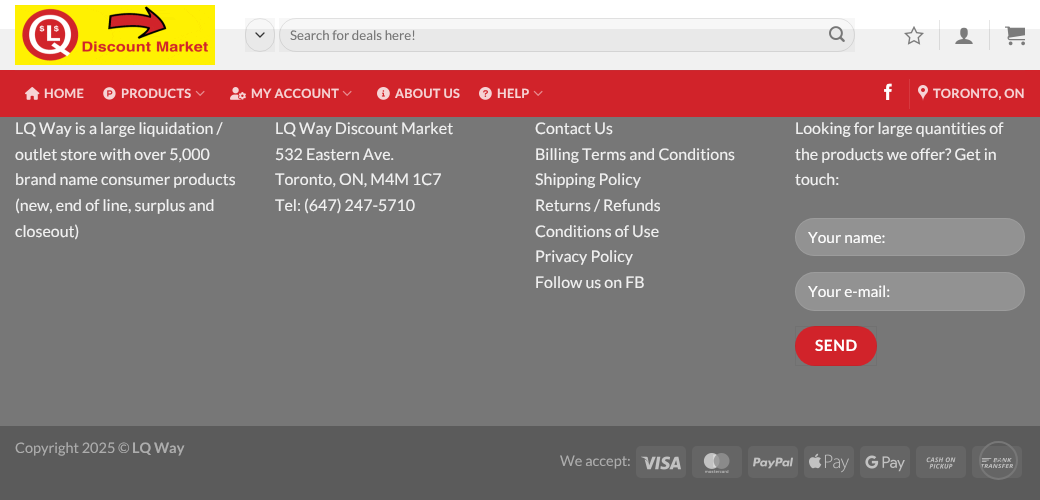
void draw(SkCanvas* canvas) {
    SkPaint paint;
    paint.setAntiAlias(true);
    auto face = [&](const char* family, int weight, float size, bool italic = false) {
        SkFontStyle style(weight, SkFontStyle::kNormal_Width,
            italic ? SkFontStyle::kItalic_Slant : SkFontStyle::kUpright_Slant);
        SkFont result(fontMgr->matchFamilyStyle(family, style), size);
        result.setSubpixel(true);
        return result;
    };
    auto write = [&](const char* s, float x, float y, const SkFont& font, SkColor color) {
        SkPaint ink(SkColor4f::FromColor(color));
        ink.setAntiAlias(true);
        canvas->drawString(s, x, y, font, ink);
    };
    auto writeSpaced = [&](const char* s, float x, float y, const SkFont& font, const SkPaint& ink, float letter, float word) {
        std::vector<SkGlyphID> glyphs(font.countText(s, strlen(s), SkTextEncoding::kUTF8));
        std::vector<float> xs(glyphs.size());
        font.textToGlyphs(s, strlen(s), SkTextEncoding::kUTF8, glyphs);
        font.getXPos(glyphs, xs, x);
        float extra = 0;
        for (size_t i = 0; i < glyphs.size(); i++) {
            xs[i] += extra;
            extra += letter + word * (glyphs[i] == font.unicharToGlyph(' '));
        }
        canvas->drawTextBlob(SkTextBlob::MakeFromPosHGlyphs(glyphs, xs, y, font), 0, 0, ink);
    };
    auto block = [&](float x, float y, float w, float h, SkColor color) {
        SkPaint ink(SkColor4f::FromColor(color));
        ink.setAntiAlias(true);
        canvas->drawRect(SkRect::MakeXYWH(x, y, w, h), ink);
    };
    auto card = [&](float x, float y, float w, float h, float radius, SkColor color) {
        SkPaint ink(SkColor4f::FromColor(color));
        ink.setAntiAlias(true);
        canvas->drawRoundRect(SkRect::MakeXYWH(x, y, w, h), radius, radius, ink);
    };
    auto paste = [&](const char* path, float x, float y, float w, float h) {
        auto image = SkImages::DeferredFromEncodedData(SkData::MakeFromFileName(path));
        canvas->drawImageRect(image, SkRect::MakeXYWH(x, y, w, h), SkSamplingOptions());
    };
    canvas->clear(SK_ColorWHITE);
    block(989, 20, 1, 9, SkColorSetRGB(230, 230, 230));
    block(939, 20, 1, 9, SkColorSetRGB(230, 230, 230));
    block(0, 30, 1040, 40, SkColorSetRGB(241, 241, 241));
    block(989, 29, 1, 21, SkColorSetRGB(217, 217, 217));
    block(939, 29, 1, 21, SkColorSetRGB(217, 217, 217));
    block(0, 29, 1040, 1, SkColorSetRGB(241, 241, 241));
    paste("pic1.png", 15, 5, 200, 60);
    block(245, 18, 30, 34, SkColorSetARGB(8, 0, 0, 0));
    paint.setStyle(SkPaint::kStroke_Style);
    paint.setStrokeWidth(1.3f);
    paint.setStrokeCap(SkPaint::kRound_Cap);
    paint.setStrokeJoin(SkPaint::kRound_Join);
    paint.setColor(SkColorSetRGB(51, 51, 51));
    canvas->drawPath(SkPathBuilder().moveTo(256, 33).lineTo(260, 37).lineTo(264, 33).detach(), paint);
    paint.setStrokeWidth(1);
    paint.setStrokeCap(SkPaint::kButt_Cap);
    paint.setStrokeJoin(SkPaint::kMiter_Join);
    paint.setColor(SkColorSetARGB(23, 0, 0, 0));
    canvas->drawRoundRect(SkRect::MakeXYWH(245.5f, 18.5f, 29, 33), 14.5f, 14.5f, paint);
    block(279, 18, 576, 34, SkColorSetARGB(8, 0, 0, 0));
    canvas->drawRoundRect(SkRect::MakeXYWH(279.5f, 18.5f, 575, 33), 16.5f, 16.5f, paint);
    auto kFont1 = face("Lato", 400, 13.25f);
    write("Search for deals here!", 290, 40, kFont1, SkColorSetRGB(117, 117, 117));
    paste("pic2.png", 829, 26, 16, 16);
    paste("pic3.png", 904, 26, 20, 19);
    paste("pic4.png", 955, 27, 18, 17);
    paste("pic5.png", 1005, 26, 20, 20);
    block(0, 70, 1040, 47, SkColorSetRGB(209, 35, 42));
    block(15, 70, 1010, 1, SkColorSetRGB(200, 43, 50));
    paste("pic6.png", 25, 87, 15, 13);
    auto kFont2 = face("Lato", 700, 12.75f);
    paint.setStyle(SkPaint::kFill_Style);
    paint.setColor(SkColorSetRGB(246, 211, 212));
    writeSpaced("HOME", 44, 98, kFont2, paint, 0.25f, 0);
    paste("pic7.png", 103, 87, 13, 13);
    writeSpaced("PRODUCTS", 121, 98, kFont2, paint, 0.25f, 0);
    paste("pic8.png", 195, 90, 10, 6);
    paste("pic9.png", 230, 87, 16, 13);
    writeSpaced("MY ACCOUNT", 251, 98, kFont2, paint, 0.25f, 0);
    paste("pic8.png", 342, 90, 10, 6);
    paste("pic10.png", 377, 87, 13, 13);
    writeSpaced("ABOUT US", 395, 98, kFont2, paint, 0.25f, 0);
    paste("pic11.png", 479, 87, 13, 13);
    writeSpaced("HELP", 497, 98, kFont2, paint, 0.25f, 0);
    paste("pic8.png", 533, 90, 10, 6);
    paste("pic12.png", 884, 83, 8, 17);
    block(909, 79, 1, 30, SkColorSetRGB(214, 57, 63));
    paste("pic13.png", 918, 85, 10, 16);
    writeSpaced("TORONTO, ON", 933, 98, kFont2, paint, 0.25f, 0);
    block(0, 117, 1040, 309, SkColorSetRGB(119, 119, 119));
    block(989, 29, 1, 1, SkColorSetRGB(217, 217, 217));
    block(939, 29, 1, 1, SkColorSetRGB(217, 217, 217));
    auto kFont3 = face("Lato", 400, 16);
    write("LQ Way is a large liquidation /", 15, 134, kFont3, SkColorSetRGB(241, 241, 241));
    write("outlet store with over 5,000", 15, 160, kFont3, SkColorSetRGB(241, 241, 241));
    write("brand name consumer products", 15, 185, kFont3, SkColorSetRGB(241, 241, 241));
    write("(new, end of line, surplus and", 15, 211, kFont3, SkColorSetRGB(241, 241, 241));
    write("closeout)", 15, 237, kFont3, SkColorSetRGB(241, 241, 241));
    write("LQ Way Discount Market", 275, 134, kFont3, SkColorSetRGB(241, 241, 241));
    write("532 Eastern Ave.", 275, 160, kFont3, SkColorSetRGB(241, 241, 241));
    write("Toronto, ON, M4M 1C7", 275, 185, kFont3, SkColorSetRGB(241, 241, 241));
    write("Tel: (647) 247-5710", 275, 211, kFont3, SkColorSetRGB(241, 241, 241));
    write("Contact Us", 535, 134, kFont3, SkColorSetRGB(241, 241, 241));
    write("Billing Terms and Conditions", 535, 160, kFont3, SkColorSetRGB(241, 241, 241));
    write("Shipping Policy", 535, 185, kFont3, SkColorSetRGB(241, 241, 241));
    write("Returns / Refunds", 535, 211, kFont3, SkColorSetRGB(241, 241, 241));
    write("Conditions of Use", 535, 237, kFont3, SkColorSetRGB(241, 241, 241));
    write("Privacy Policy", 535, 262, kFont3, SkColorSetRGB(241, 241, 241));
    write("Follow us on FB", 535, 288, kFont3, SkColorSetRGB(241, 241, 241));
    write("Looking for large quantities of", 795, 134, kFont3, SkColorSetRGB(241, 241, 241));
    write("the products we offer? Get in", 795, 160, kFont3, SkColorSetRGB(241, 241, 241));
    write("touch:", 795, 185, kFont3, SkColorSetRGB(241, 241, 241));
    card(795, 218, 230, 38, 19, SkColorSetRGB(146, 146, 146));
    paint.setStyle(SkPaint::kStroke_Style);
    paint.setColor(SkColorSetARGB(23, 255, 255, 255));
    canvas->drawRoundRect(SkRect::MakeXYWH(795.5f, 218.5f, 229, 37), 18.5f, 18.5f, paint);
    auto kFont4 = face("Lato", 400, 15.5f);
    write("Your name:", 808, 243, kFont4, SK_ColorWHITE);
    card(795, 272, 230, 39, 19.5f, SkColorSetRGB(146, 146, 146));
    canvas->drawRoundRect(SkRect::MakeXYWH(795.5f, 272.5f, 229, 38), 19, 19, paint);
    write("Your e-mail:", 808, 297, kFont4, SK_ColorWHITE);
    card(795, 326, 82, 40, 20, SkColorSetRGB(209, 35, 42));
    paint.setColor(SkColorSetARGB(13, 0, 0, 0));
    canvas->drawRect(SkRect::MakeXYWH(795.5f, 326.5f, 81, 39), paint);
    auto kFont5 = face("Lato", 700, 15.5f);
    paint.setStyle(SkPaint::kFill_Style);
    paint.setColor(SK_ColorWHITE);
    writeSpaced("SEND", 815, 351, kFont5, paint, 0.5f, 0);
    block(0, 426, 1040, 74, SkColorSetRGB(91, 91, 91));
    auto kFont6 = face("Lato", 400, 14.5f);
    write("Copyright 2025 ©", 15, 453, kFont6, SkColorSetRGB(173, 173, 173));
    auto kFont7 = face("Lato", 700, 14.5f);
    write("LQ Way", 132, 453, kFont7, SkColorSetRGB(173, 173, 173));
    write("We accept:", 560, 466, kFont6, SkColorSetRGB(173, 173, 173));
    card(636, 446, 50, 32, 5, SkColorSetRGB(101, 101, 101));
    paste("pic14.png", 641, 456, 40, 14);
    card(692, 446, 50, 32, 5, SkColorSetRGB(101, 101, 101));
    paste("pic15.png", 703, 453, 27, 20);
    card(748, 446, 50, 32, 5, SkColorSetRGB(101, 101, 101));
    paste("pic16.png", 753, 457, 40, 12);
    card(804, 446, 50, 32, 5, SkColorSetRGB(101, 101, 101));
    paste("pic17.png", 809, 453, 40, 20);
    card(860, 446, 50, 32, 5, SkColorSetRGB(101, 101, 101));
    paste("pic18.png", 865, 455, 40, 17);
    card(916, 446, 50, 32, 5, SkColorSetRGB(101, 101, 101));
    paste("pic19.png", 926, 457, 30, 12);
    card(972, 446, 50, 32, 5, SkColorSetRGB(101, 101, 101));
    paste("pic20.png", 981, 458, 32, 10);
    paint.setStyle(SkPaint::kStroke_Style);
    paint.setStrokeWidth(2);
    paint.setColor(SkColorSetRGB(119, 119, 119));
    canvas->drawCircle(998.5f, 460.5f, 18.5f, paint);
    paste("pic21.png", 994, 458, 10, 6);
}
